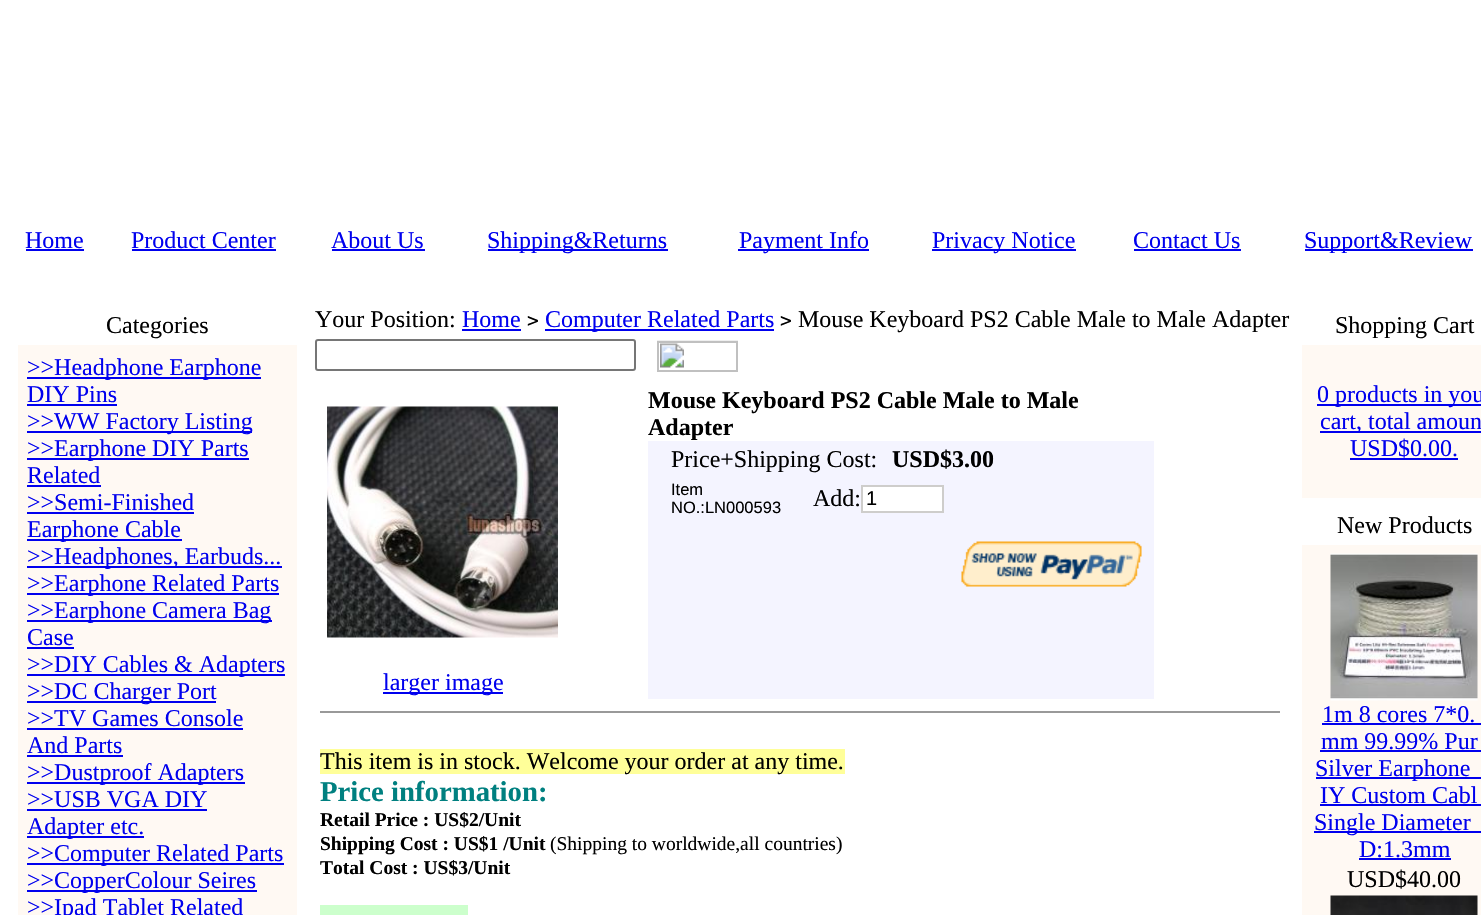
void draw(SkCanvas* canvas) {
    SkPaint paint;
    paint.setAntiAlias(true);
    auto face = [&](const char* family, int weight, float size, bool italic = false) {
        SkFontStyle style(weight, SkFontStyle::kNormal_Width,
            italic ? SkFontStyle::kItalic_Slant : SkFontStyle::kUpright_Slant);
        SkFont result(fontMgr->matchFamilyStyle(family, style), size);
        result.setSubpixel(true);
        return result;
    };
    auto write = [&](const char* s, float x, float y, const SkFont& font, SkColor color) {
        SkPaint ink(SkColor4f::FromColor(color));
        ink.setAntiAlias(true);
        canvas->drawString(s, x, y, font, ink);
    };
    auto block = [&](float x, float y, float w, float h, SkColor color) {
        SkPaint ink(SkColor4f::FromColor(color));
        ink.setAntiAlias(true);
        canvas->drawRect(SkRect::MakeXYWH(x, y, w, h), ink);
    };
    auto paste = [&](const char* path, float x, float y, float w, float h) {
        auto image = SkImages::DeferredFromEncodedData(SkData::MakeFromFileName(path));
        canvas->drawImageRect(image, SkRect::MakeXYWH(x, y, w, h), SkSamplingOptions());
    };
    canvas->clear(SK_ColorWHITE);
    auto kFont1 = face("Liberation Serif", 400, 24);
    write("Home", 25, 248, kFont1, SkColorSetRGB(0, 0, 238));
    block(26, 249, 58, 2, SkColorSetRGB(0, 0, 238));
    write("Product Center", 131, 248, kFont1, SkColorSetRGB(0, 0, 238));
    block(132, 249, 144, 2, SkColorSetRGB(0, 0, 238));
    write("About Us", 331, 248, kFont1, SkColorSetRGB(0, 0, 238));
    block(332, 249, 93, 2, SkColorSetRGB(0, 0, 238));
    block(488, 249, 180, 2, SkColorSetRGB(0, 0, 238));
    write("Shipping&Returns", 487, 248, kFont1, SkColorSetRGB(0, 0, 238));
    block(738, 249, 131, 2, SkColorSetRGB(0, 0, 238));
    write("Payment Info", 739, 248, kFont1, SkColorSetRGB(0, 0, 238));
    block(932, 249, 144, 2, SkColorSetRGB(0, 0, 238));
    write("Privacy Notice", 932, 248, kFont1, SkColorSetRGB(0, 0, 238));
    write("Contact Us", 1133, 248, kFont1, SkColorSetRGB(0, 0, 238));
    block(1134, 249, 107, 2, SkColorSetRGB(0, 0, 238));
    block(1305, 249, 168, 2, SkColorSetRGB(0, 0, 238));
    write("Support&Review", 1304, 248, kFont1, SkColorSetRGB(0, 0, 238));
    write("Categories", 106, 333, kFont1, SK_ColorBLACK);
    block(18, 345, 279, 570, SkColorSetRGB(255, 249, 243));
    block(27, 377, 234, 2, SkColorSetRGB(0, 0, 238));
    write(">>Headphone Earphone", 27, 375, kFont1, SkColorSetRGB(0, 0, 238));
    write("DIY Pins", 27, 402, kFont1, SkColorSetRGB(0, 0, 238));
    block(27, 404, 90, 2, SkColorSetRGB(0, 0, 238));
    block(27, 431, 225, 2, SkColorSetRGB(0, 0, 238));
    write(">>WW Factory Listing", 27, 429, kFont1, SkColorSetRGB(0, 0, 238));
    block(27, 458, 222, 2, SkColorSetRGB(0, 0, 238));
    write(">>Earphone DIY Parts", 27, 456, kFont1, SkColorSetRGB(0, 0, 238));
    write("Related", 27, 483, kFont1, SkColorSetRGB(0, 0, 238));
    block(27, 485, 74, 2, SkColorSetRGB(0, 0, 238));
    write(">>Semi-Finished", 27, 510, kFont1, SkColorSetRGB(0, 0, 238));
    block(27, 512, 167, 2, SkColorSetRGB(0, 0, 238));
    block(27, 539, 155, 2, SkColorSetRGB(0, 0, 238));
    write("Earphone Cable", 27, 537, kFont1, SkColorSetRGB(0, 0, 238));
    block(27, 566, 255, 2, SkColorSetRGB(0, 0, 238));
    write(">>Headphones, Earbuds...", 27, 564, kFont1, SkColorSetRGB(0, 0, 238));
    block(27, 593, 252, 2, SkColorSetRGB(0, 0, 238));
    write(">>Earphone Related Parts", 27, 591, kFont1, SkColorSetRGB(0, 0, 238));
    block(27, 620, 245, 2, SkColorSetRGB(0, 0, 238));
    write(">>Earphone Camera Bag", 27, 618, kFont1, SkColorSetRGB(0, 0, 238));
    write("Case", 27, 645, kFont1, SkColorSetRGB(0, 0, 238));
    block(27, 647, 47, 2, SkColorSetRGB(0, 0, 238));
    block(27, 674, 258, 2, SkColorSetRGB(0, 0, 238));
    write(">>DIY Cables & Adapters", 27, 672, kFont1, SkColorSetRGB(0, 0, 238));
    block(27, 701, 189, 2, SkColorSetRGB(0, 0, 238));
    write(">>DC Charger Port", 27, 699, kFont1, SkColorSetRGB(0, 0, 238));
    write(">>TV Games Console", 27, 726, kFont1, SkColorSetRGB(0, 0, 238));
    block(27, 728, 216, 2, SkColorSetRGB(0, 0, 238));
    write("And Parts", 27, 753, kFont1, SkColorSetRGB(0, 0, 238));
    block(27, 755, 96, 2, SkColorSetRGB(0, 0, 238));
    block(27, 782, 218, 2, SkColorSetRGB(0, 0, 238));
    write(">>Dustproof Adapters", 27, 780, kFont1, SkColorSetRGB(0, 0, 238));
    write(">>USB VGA DIY", 27, 807, kFont1, SkColorSetRGB(0, 0, 238));
    block(27, 809, 180, 2, SkColorSetRGB(0, 0, 238));
    block(27, 836, 117, 2, SkColorSetRGB(0, 0, 238));
    write("Adapter etc.", 27, 834, kFont1, SkColorSetRGB(0, 0, 238));
    block(27, 863, 257, 2, SkColorSetRGB(0, 0, 238));
    write(">>Computer Related Parts", 27, 861, kFont1, SkColorSetRGB(0, 0, 238));
    block(27, 890, 230, 2, SkColorSetRGB(0, 0, 238));
    write(">>CopperColour Seires", 27, 888, kFont1, SkColorSetRGB(0, 0, 238));
    write(">>Ipad Tablet Related", 27, 915, kFont1, SkColorSetRGB(0, 0, 238));
    write("Your Position:", 315, 327, kFont1, SK_ColorBLACK);
    write("Home", 462, 327, kFont1, SkColorSetRGB(0, 0, 238));
    block(462, 329, 59, 2, SkColorSetRGB(0, 0, 238));
    auto kFont2 = face("DejaVu Sans Mono", 400, 19.5f);
    write(">", 527, 327, kFont2, SK_ColorBLACK);
    block(545, 329, 229, 2, SkColorSetRGB(0, 0, 238));
    write("Computer Related Parts", 545, 327, kFont1, SkColorSetRGB(0, 0, 238));
    write(">", 780, 327, kFont2, SK_ColorBLACK);
    write("Mouse Keyboard PS2 Cable Male to Male Adapter", 798, 327, kFont1, SK_ColorBLACK);
    paint.setStyle(SkPaint::kStroke_Style);
    paint.setStrokeWidth(2);
    paint.setColor(SkColorSetRGB(118, 118, 118));
    canvas->drawRoundRect(SkRect::MakeXYWH(316, 340, 319, 30), 2, 2, paint);
    paste("pic1.png", 657, 340, 81, 28);
    paint.setColor(SkColorSetRGB(192, 192, 192));
    canvas->drawRect(SkRect::MakeXYWH(658, 342, 79, 29), paint);
    paste("pic2.png", 327, 406, 231, 232);
    auto kFont3 = face("Liberation Serif", 700, 24);
    write("Mouse Keyboard PS2 Cable Male to Male", 648, 408, kFont3, SK_ColorBLACK);
    write("Adapter", 648, 435, kFont3, SK_ColorBLACK);
    block(648, 441, 506, 258, SkColorSetRGB(244, 244, 255));
    write("Price+Shipping Cost:", 671, 467, kFont1, SK_ColorBLACK);
    write("USD$3.00", 892, 467, kFont3, SK_ColorBLACK);
    auto kFont4 = face("Liberation Sans", 400, 16.5f);
    write("Item", 671, 495, kFont4, SK_ColorBLACK);
    write("NO.:LN000593", 671, 513, kFont4, SK_ColorBLACK);
    write("Add:", 813, 506, kFont1, SK_ColorBLACK);
    paint.setStyle(SkPaint::kFill_Style);
    paint.setColor(SK_ColorWHITE);
    canvas->drawRect(SkRect::MakeXYWH(862, 486, 81, 26), paint);
    paint.setStyle(SkPaint::kStroke_Style);
    paint.setColor(SkColorSetRGB(206, 205, 203));
    canvas->drawRect(SkRect::MakeXYWH(862, 486, 81, 26), paint);
    auto kFont5 = face("Liberation Sans", 400, 20);
    write("1", 866, 505, kFont5, SK_ColorBLACK);
    paste("pic3.png", 961, 541, 181, 46);
    block(383, 692, 120, 2, SkColorSetRGB(0, 0, 238));
    write("larger image", 383, 690, kFont1, SkColorSetRGB(0, 0, 238));
    block(320, 711, 960, 2, SkColorSetRGB(153, 153, 153));
    block(320, 749, 525, 25, SkColorSetRGB(255, 255, 153));
    write("This item is in stock. Welcome your order at any time.", 320, 769, kFont1, SK_ColorBLACK);
    auto kFont6 = face("Liberation Serif", 700, 28.75f);
    write("Price information:", 320, 801, kFont6, SkColorSetRGB(0, 128, 128));
    auto kFont7 = face("Liberation Serif", 700, 19.5f);
    write("Retail Price : US$2/Unit", 320, 826, kFont7, SK_ColorBLACK);
    write("Shipping Cost : US$1 /Unit", 320, 850, kFont7, SK_ColorBLACK);
    auto kFont8 = face("Liberation Serif", 400, 19.5f);
    write("(Shipping to worldwide,all countries)", 550, 850, kFont8, SK_ColorBLACK);
    write("Total Cost : US$3/Unit", 320, 874, kFont7, SK_ColorBLACK);
    block(320, 905, 148, 10, SkColorSetRGB(204, 255, 204));
    write("Shopping Cart", 1335, 333, kFont1, SK_ColorBLACK);
    block(1302, 345, 179, 153, SkColorSetRGB(255, 249, 243));
    block(1317, 404, 164, 2, SkColorSetRGB(0, 0, 238));
    write("0 products in you", 1317, 402, kFont1, SkColorSetRGB(0, 0, 238));
    block(1320, 431, 161, 2, SkColorSetRGB(0, 0, 238));
    write("cart, total amoun", 1320, 429, kFont1, SkColorSetRGB(0, 0, 238));
    write("USD$0.00.", 1350, 456, kFont1, SkColorSetRGB(0, 0, 238));
    block(1350, 458, 108, 2, SkColorSetRGB(0, 0, 238));
    write("New Products", 1337, 533, kFont1, SK_ColorBLACK);
    block(1302, 545, 179, 370, SkColorSetRGB(255, 249, 243));
    paste("pic4.png", 1330, 553, 148, 148);
    write("1m 8 cores 7*0.", 1322, 722, kFont1, SkColorSetRGB(0, 0, 238));
    block(1322, 723, 159, 2, SkColorSetRGB(0, 0, 238));
    write("mm 99.99% Pur", 1321, 749, kFont1, SkColorSetRGB(0, 0, 238));
    block(1320, 750, 161, 2, SkColorSetRGB(0, 0, 238));
    block(1316, 777, 165, 2, SkColorSetRGB(0, 0, 238));
    write("Silver Earphone", 1315, 776, kFont1, SkColorSetRGB(0, 0, 238));
    write("IY Custom Cabl", 1320, 803, kFont1, SkColorSetRGB(0, 0, 238));
    block(1320, 804, 161, 2, SkColorSetRGB(0, 0, 238));
    block(1314, 831, 167, 2, SkColorSetRGB(0, 0, 238));
    write("Single Diameter", 1314, 830, kFont1, SkColorSetRGB(0, 0, 238));
    write("D:1.3mm", 1359, 857, kFont1, SkColorSetRGB(0, 0, 238));
    block(1359, 858, 92, 2, SkColorSetRGB(0, 0, 238));
    write("USD$40.00", 1347, 887, kFont1, SK_ColorBLACK);
    paste("pic5.png", 1330, 895, 148, 20);
}
